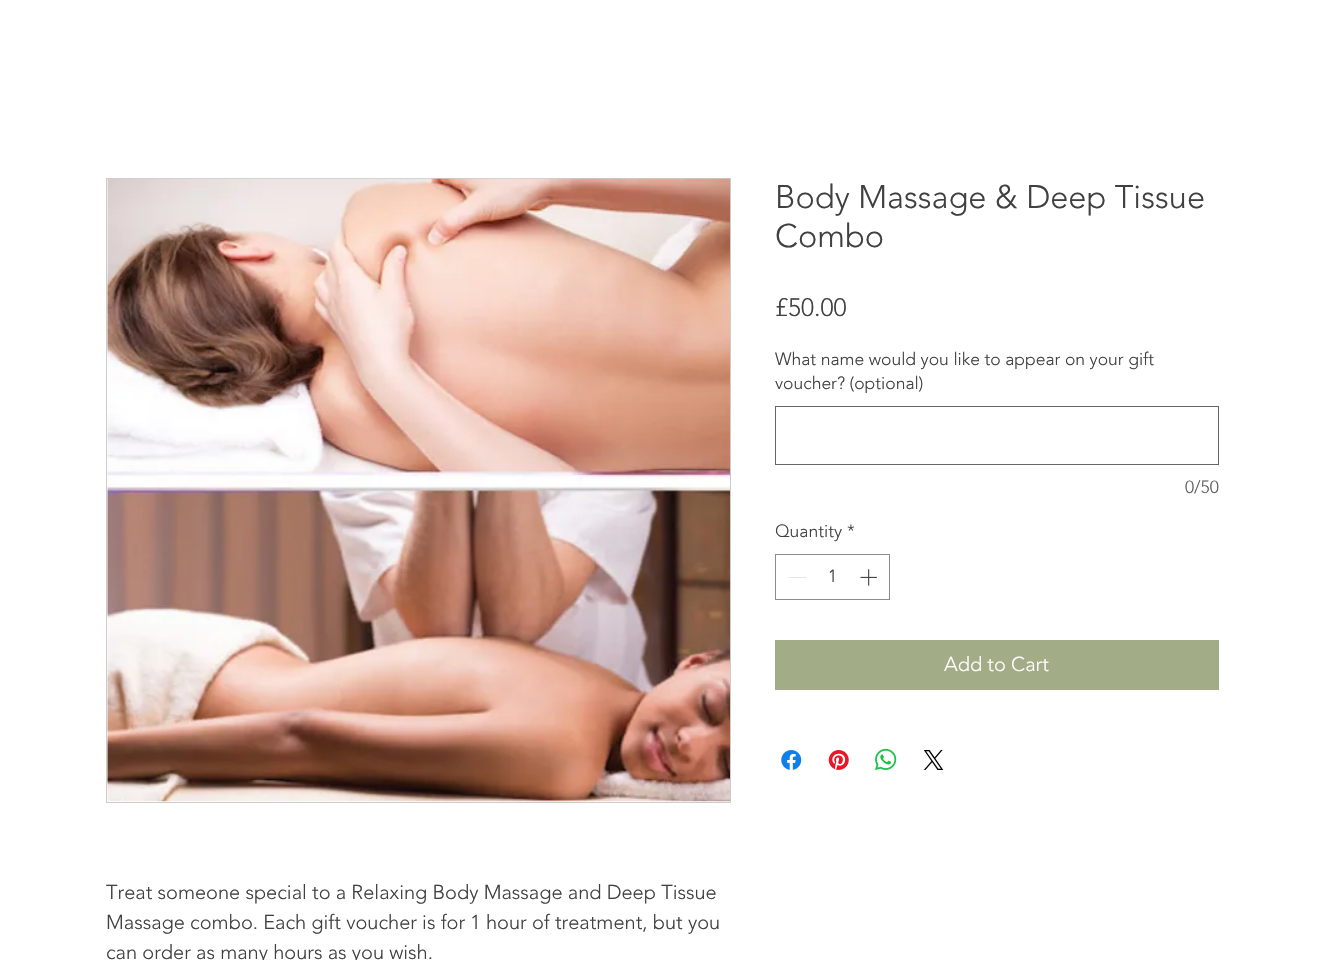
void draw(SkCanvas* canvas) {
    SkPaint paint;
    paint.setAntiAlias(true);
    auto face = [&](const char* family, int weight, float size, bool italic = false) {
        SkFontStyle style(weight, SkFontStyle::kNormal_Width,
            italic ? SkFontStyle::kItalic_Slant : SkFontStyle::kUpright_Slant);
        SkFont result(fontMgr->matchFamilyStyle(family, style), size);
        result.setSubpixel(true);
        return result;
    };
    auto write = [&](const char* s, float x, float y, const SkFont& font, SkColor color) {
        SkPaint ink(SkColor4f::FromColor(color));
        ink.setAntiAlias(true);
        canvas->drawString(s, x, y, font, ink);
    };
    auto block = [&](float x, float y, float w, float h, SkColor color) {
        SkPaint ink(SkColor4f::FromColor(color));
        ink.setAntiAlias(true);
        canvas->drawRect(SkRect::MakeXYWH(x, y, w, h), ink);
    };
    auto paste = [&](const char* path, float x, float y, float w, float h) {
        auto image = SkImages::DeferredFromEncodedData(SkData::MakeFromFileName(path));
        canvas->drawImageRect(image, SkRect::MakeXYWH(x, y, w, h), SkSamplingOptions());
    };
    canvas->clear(SK_ColorWHITE);
    auto kFont1 = face("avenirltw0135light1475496", 300, 32.5f);
    write("Body Massage & Deep Tissue", 775, 208, kFont1, SkColorSetRGB(64, 64, 65));
    write("Combo", 775, 247, kFont1, SkColorSetRGB(64, 64, 65));
    auto kFont2 = face("avenirltw0135light1475496", 300, 25);
    write("£50.00", 775, 316, kFont2, SkColorSetRGB(64, 64, 65));
    auto kFont3 = face("avenirltw0135light1475496", 300, 17.5f);
    write("What name would you like to appear on your gift", 775, 365, kFont3, SkColorSetRGB(64, 64, 65));
    write("voucher? (optional)", 775, 389, kFont3, SkColorSetRGB(64, 64, 65));
    paint.setStyle(SkPaint::kStroke_Style);
    paint.setStrokeWidth(1);
    paint.setColor(SkColorSetRGB(102, 102, 102));
    canvas->drawRect(SkRect::MakeXYWH(775.5f, 406.5f, 443, 58), paint);
    write("0/50", 1185, 493, kFont3, SkColorSetRGB(96, 94, 94));
    write("Quantity", 775, 537, kFont3, SkColorSetRGB(64, 64, 65));
    write("*", 847, 537, kFont3, SkColorSetRGB(64, 64, 65));
    paint.setColor(SkColorSetRGB(140, 140, 141));
    canvas->drawRect(SkRect::MakeXYWH(775.5f, 554.5f, 114, 45), paint);
    block(789, 577, 17, 1, SkColorSetRGB(227, 227, 227));
    write("1", 828, 582, kFont3, SkColorSetRGB(64, 64, 65));
    paste("pic1.png", 860, 569, 17, 17);
    block(775, 640, 444, 50, SkColorSetRGB(162, 172, 135));
    auto kFont4 = face("avenirltw0135light1475496", 300, 20);
    write("Add to Cart", 944, 671, kFont4, SK_ColorWHITE);
    paste("pic2.png", 781, 750, 21, 20);
    paste("pic3.png", 828, 750, 21, 20);
    paste("pic4.png", 875, 748, 22, 23);
    paste("pic5.png", 923, 750, 21, 20);
    paint.setColor(SkColorSetRGB(204, 204, 204));
    canvas->drawRect(SkRect::MakeXYWH(106.5f, 178.5f, 624, 624), paint);
    paste("pic6.png", 107, 178, 623, 624);
    write("Treat someone special to a Relaxing Body Massage and Deep Tissue", 106, 899, kFont4, SkColorSetRGB(64, 64, 65));
    write("Massage combo. Each gift voucher is for 1 hour of treatment, but you", 106, 929, kFont4, SkColorSetRGB(64, 64, 65));
    write("can order as many hours as you wish.", 106, 959, kFont4, SkColorSetRGB(64, 64, 65));
}
